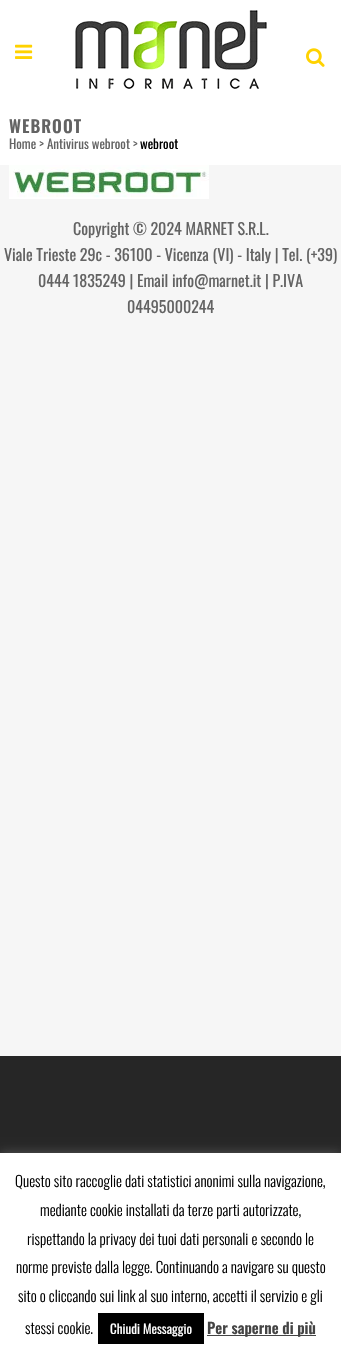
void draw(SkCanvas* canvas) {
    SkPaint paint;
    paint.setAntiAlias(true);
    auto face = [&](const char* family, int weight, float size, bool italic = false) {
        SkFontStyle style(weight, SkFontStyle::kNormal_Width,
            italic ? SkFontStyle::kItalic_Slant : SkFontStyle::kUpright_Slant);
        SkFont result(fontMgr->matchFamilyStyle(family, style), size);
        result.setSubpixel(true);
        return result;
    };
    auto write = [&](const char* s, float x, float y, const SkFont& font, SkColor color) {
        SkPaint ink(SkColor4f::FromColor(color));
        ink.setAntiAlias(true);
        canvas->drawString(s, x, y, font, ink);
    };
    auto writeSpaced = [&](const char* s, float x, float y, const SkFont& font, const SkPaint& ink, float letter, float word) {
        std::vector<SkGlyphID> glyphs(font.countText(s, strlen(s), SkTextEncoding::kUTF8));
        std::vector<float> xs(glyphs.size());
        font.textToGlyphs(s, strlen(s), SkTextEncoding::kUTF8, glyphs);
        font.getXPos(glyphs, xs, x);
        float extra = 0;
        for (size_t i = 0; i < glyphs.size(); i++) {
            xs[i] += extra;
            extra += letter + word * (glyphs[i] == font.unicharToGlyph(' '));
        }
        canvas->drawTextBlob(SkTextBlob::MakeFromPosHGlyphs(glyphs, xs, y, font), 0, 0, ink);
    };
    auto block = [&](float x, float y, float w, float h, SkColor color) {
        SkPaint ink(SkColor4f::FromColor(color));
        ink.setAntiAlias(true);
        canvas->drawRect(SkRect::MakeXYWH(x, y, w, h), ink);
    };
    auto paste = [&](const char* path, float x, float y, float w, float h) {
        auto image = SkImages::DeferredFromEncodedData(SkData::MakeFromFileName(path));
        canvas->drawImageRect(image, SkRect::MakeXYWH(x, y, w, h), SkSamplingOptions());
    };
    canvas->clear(SkColorSetRGB(246, 246, 246));
    block(0, 0, 341, 165, SK_ColorWHITE);
    paste("pic1.png", 15, 44, 18, 15);
    paste("pic2.png", 75, 10, 192, 79);
    paste("pic3.png", 306, 48, 19, 19);
    auto kFont1 = face("Oswald", 600, 17);
    paint.setColor(SkColorSetRGB(99, 99, 99));
    writeSpaced("WEBROOT", 9, 133, kFont1, paint, 1, 0);
    auto kFont2 = face("Oswald", 400, 13);
    write("Home > Antivirus webroot >", 9, 149, kFont2, SkColorSetRGB(99, 99, 99));
    write("webroot", 140, 149, kFont2, SK_ColorBLACK);
    paste("pic4.png", 9, 165, 200, 34);
    auto kFont3 = face("Oswald", 400, 16);
    write("Copyright © 2024 MARNET S.R.L.", 73, 235, kFont3, SkColorSetRGB(99, 99, 99));
    write("Viale Trieste 29c - 36100 - Vicenza (VI) - Italy | Tel. (+39)", 4, 261, kFont3, SkColorSetRGB(99, 99, 99));
    write("0444 1835249 | Email info@marnet.it | P.IVA", 38, 287, kFont3, SkColorSetRGB(99, 99, 99));
    write("04495000244", 127, 313, kFont3, SkColorSetRGB(99, 99, 99));
    block(0, 1056, 341, 97, SkColorSetRGB(38, 38, 38));
    paint.setColor(SkColorSetARGB(77, 172, 171, 171));
    paint.setMaskFilter(SkMaskFilter::MakeBlur(kNormal_SkBlurStyle, 5));
    canvas->drawRect(SkRect::MakeXYWH(0, 1152, 341, 203), paint);
    paint.setMaskFilter(nullptr);
    block(0, 1153, 341, 203, SK_ColorWHITE);
    auto kFont4 = face("Oswald", 300, 15);
    write("Questo sito raccoglie dati statistici anonimi sulla navigazione,", 15, 1187, kFont4, SK_ColorBLACK);
    write("mediante cookie installati da terze parti autorizzate,", 40, 1216, kFont4, SK_ColorBLACK);
    write("rispettando la privacy dei tuoi dati personali e secondo le", 27, 1245, kFont4, SK_ColorBLACK);
    write("norme previste dalla legge. Continuando a navigare su questo", 16, 1273, kFont4, SK_ColorBLACK);
    write("sito o cliccando sui link al suo interno, accetti il servizio e gli", 18, 1302, kFont4, SK_ColorBLACK);
    write("stessi cookie.", 25, 1334, kFont4, SK_ColorBLACK);
    block(98, 1313, 106, 31, SK_ColorBLACK);
    write("Chiudi Messaggio", 110, 1334, kFont2, SK_ColorWHITE);
    block(207, 1335, 109, 1, SkColorSetRGB(68, 68, 68));
    auto kFont5 = face("Oswald", 600, 15);
    write("Per saperne di più", 207, 1334, kFont5, SkColorSetRGB(68, 68, 68));
}
